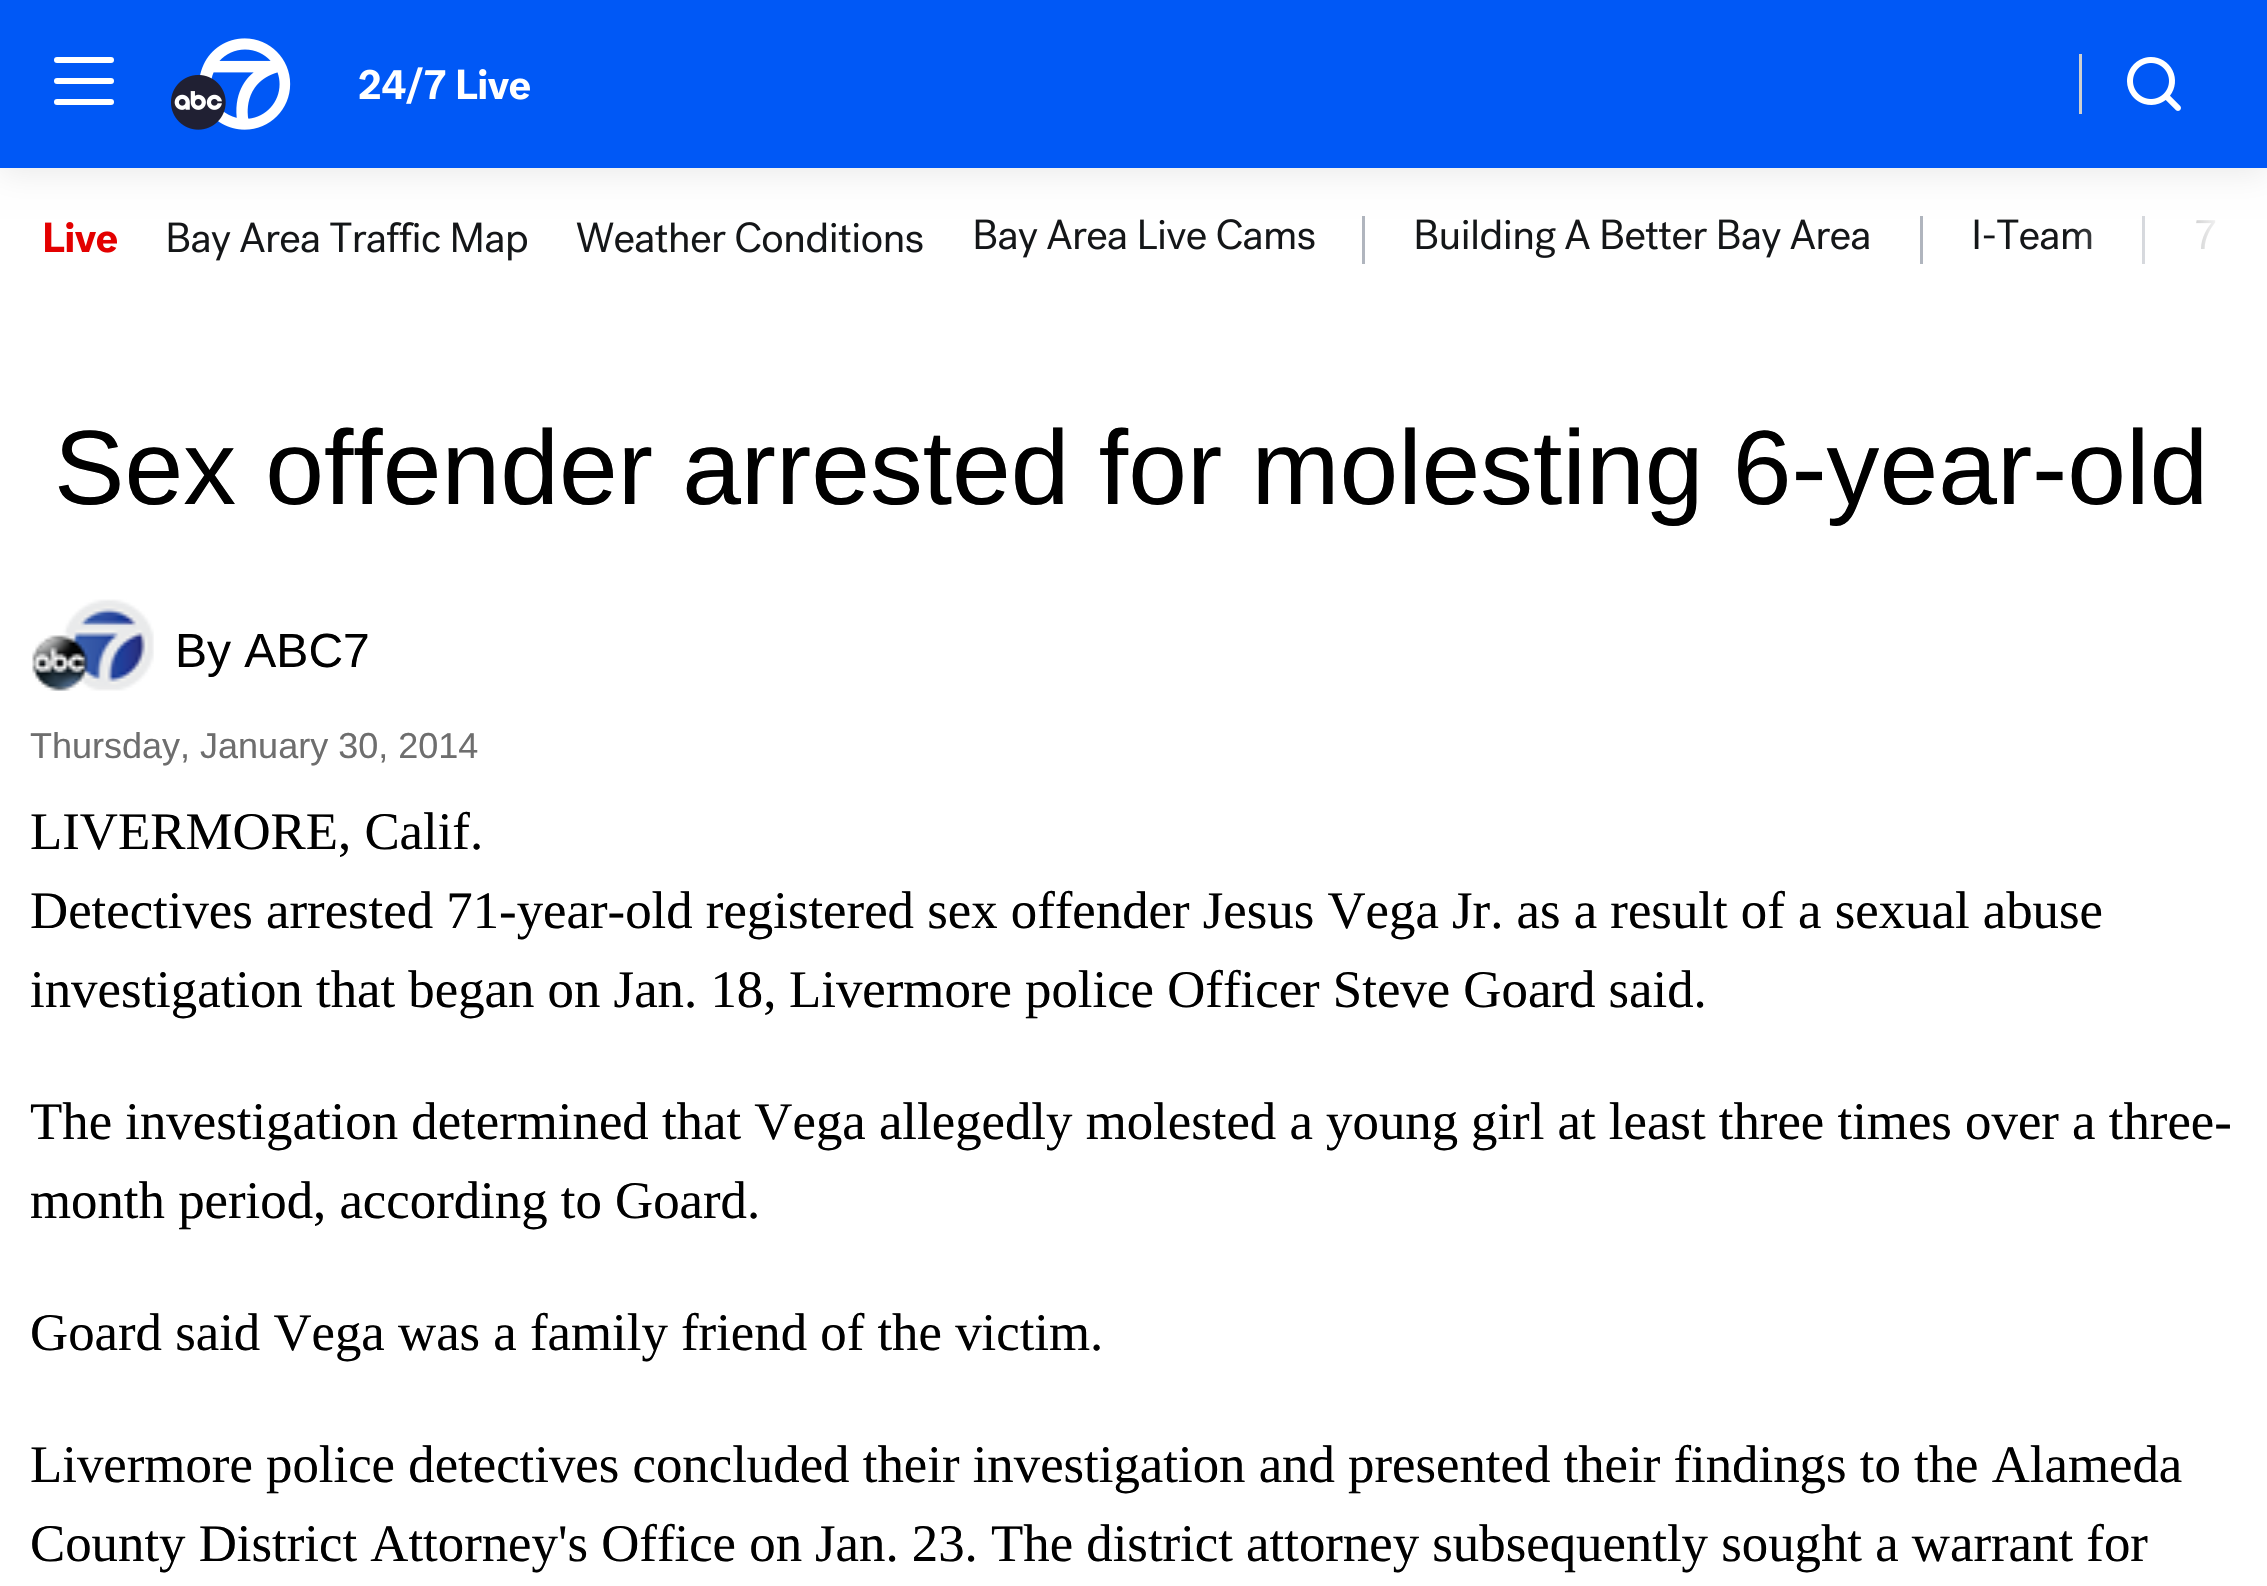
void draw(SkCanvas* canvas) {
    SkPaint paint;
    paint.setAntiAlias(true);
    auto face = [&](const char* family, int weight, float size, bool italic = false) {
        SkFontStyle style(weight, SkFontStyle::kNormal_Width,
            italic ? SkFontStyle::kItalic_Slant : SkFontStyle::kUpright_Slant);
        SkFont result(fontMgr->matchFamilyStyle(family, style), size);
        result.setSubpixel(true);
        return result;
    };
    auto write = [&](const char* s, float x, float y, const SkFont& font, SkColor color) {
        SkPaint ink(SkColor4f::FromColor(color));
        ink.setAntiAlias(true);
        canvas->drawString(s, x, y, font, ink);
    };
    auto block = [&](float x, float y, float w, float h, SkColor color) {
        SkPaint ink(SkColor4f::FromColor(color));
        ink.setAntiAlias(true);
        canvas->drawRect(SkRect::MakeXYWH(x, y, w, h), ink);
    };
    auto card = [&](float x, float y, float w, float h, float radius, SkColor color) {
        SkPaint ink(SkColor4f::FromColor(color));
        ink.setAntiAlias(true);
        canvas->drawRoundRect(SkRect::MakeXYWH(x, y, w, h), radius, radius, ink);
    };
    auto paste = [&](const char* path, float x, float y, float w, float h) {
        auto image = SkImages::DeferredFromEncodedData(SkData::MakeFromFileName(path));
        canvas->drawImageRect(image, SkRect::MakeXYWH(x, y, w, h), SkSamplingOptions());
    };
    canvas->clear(SK_ColorWHITE);
    paste("pic7.png", 975, 219, 340, 39);
    block(1362, 216, 3, 48, SkColorSetRGB(176, 181, 190));
    paste("pic8.png", 1416, 219, 453, 39);
    block(1920, 216, 3, 48, SkColorSetRGB(176, 181, 190));
    paste("pic9.png", 1974, 219, 118, 31);
    block(2142, 216, 3, 48, SkColorSetRGB(176, 181, 190));
    paste("pic10.png", 2196, 220, 20, 29);
    {
        const SkColor colors[] = {SK_ColorWHITE, SkColorSetARGB(0, 255, 255, 255)};
        const float stops[] = {0, 1};
        const SkPoint ends[] = {{2226, 240}, {2067, 240}};
        paint.setShader(SkGradientShader::MakeLinear(ends, colors, stops, 2, SkTileMode::kClamp));
        paint.setAlpha(255);
    }
    canvas->drawRect(SkRect::MakeXYWH(2070, 216, 146, 48), paint);
    paint.setShader(nullptr);
    paint.setColor(SkColorSetARGB(20, 0, 0, 0));
    paint.setMaskFilter(SkMaskFilter::MakeBlur(kNormal_SkBlurStyle, 15));
    canvas->drawRect(SkRect::MakeXYWH(0, 6, 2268, 168), paint);
    paint.setMaskFilter(nullptr);
    block(0, 0, 2267, 168, SkColorSetRGB(0, 88, 246));
    card(54, 78, 60, 6, 3, SK_ColorWHITE);
    card(54, 57, 60, 6, 3, SK_ColorWHITE);
    card(54, 99, 60, 6, 3, SK_ColorWHITE);
    paste("pic1.png", 171, 38, 120, 92);
    paste("pic2.png", 359, 67, 171, 37);
    block(2079, 54, 3, 60, SkColorSetRGB(206, 207, 207));
    paste("pic3.png", 2127, 57, 54, 54);
    paste("pic4.png", 45, 222, 72, 31);
    paste("pic5.png", 168, 222, 359, 39);
    paste("pic6.png", 576, 222, 347, 31);
    auto kFont1 = face("Liberation Sans", 400, 105.6f);
    write("Sex offender arrested for molesting 6-year-old", 54, 504, kFont1, SK_ColorBLACK);
    paste("pic11.png", 32, 599, 122, 92);
    auto kFont2 = face("Liberation Sans", 400, 48);
    write("By ABC7", 175, 667, kFont2, SK_ColorBLACK);
    auto kFont3 = face("Liberation Sans", 400, 36);
    write("Thursday, January 30, 2014", 30, 758, kFont3, SkColorSetRGB(110, 110, 110));
    auto kFont4 = face("Liberation Serif", 400, 52.8f);
    write("LIVERMORE, Calif.", 30, 849, kFont4, SK_ColorBLACK);
    write("Detectives arrested 71-year-old registered sex offender Jesus Vega", 30, 928, kFont4, SK_ColorBLACK);
    write("Jr. as a result of a sexual abuse", 1452, 928, kFont4, SK_ColorBLACK);
    write("investigation that began on Jan. 18,", 30, 1007, kFont4, SK_ColorBLACK);
    write("Livermore police Officer Steve Goard said.", 789, 1007, kFont4, SK_ColorBLACK);
    write("The investigation determined that Vega allegedly molested a young", 30, 1139, kFont4, SK_ColorBLACK);
    write("girl at least three times over a three-", 1471, 1139, kFont4, SK_ColorBLACK);
    write("month period, according to Goard.", 30, 1218, kFont4, SK_ColorBLACK);
    write("Goard said Vega was a family friend of the victim.", 30, 1350, kFont4, SK_ColorBLACK);
    write("Livermore police detectives concluded their investigation and", 30, 1482, kFont4, SK_ColorBLACK);
    write("presented their findings to the Alameda", 1348, 1482, kFont4, SK_ColorBLACK);
    write("County District Attorney's Office on", 30, 1561, kFont4, SK_ColorBLACK);
    write("Jan. 23. The district attorney subsequently sought a warrant for", 815, 1561, kFont4, SK_ColorBLACK);
}
